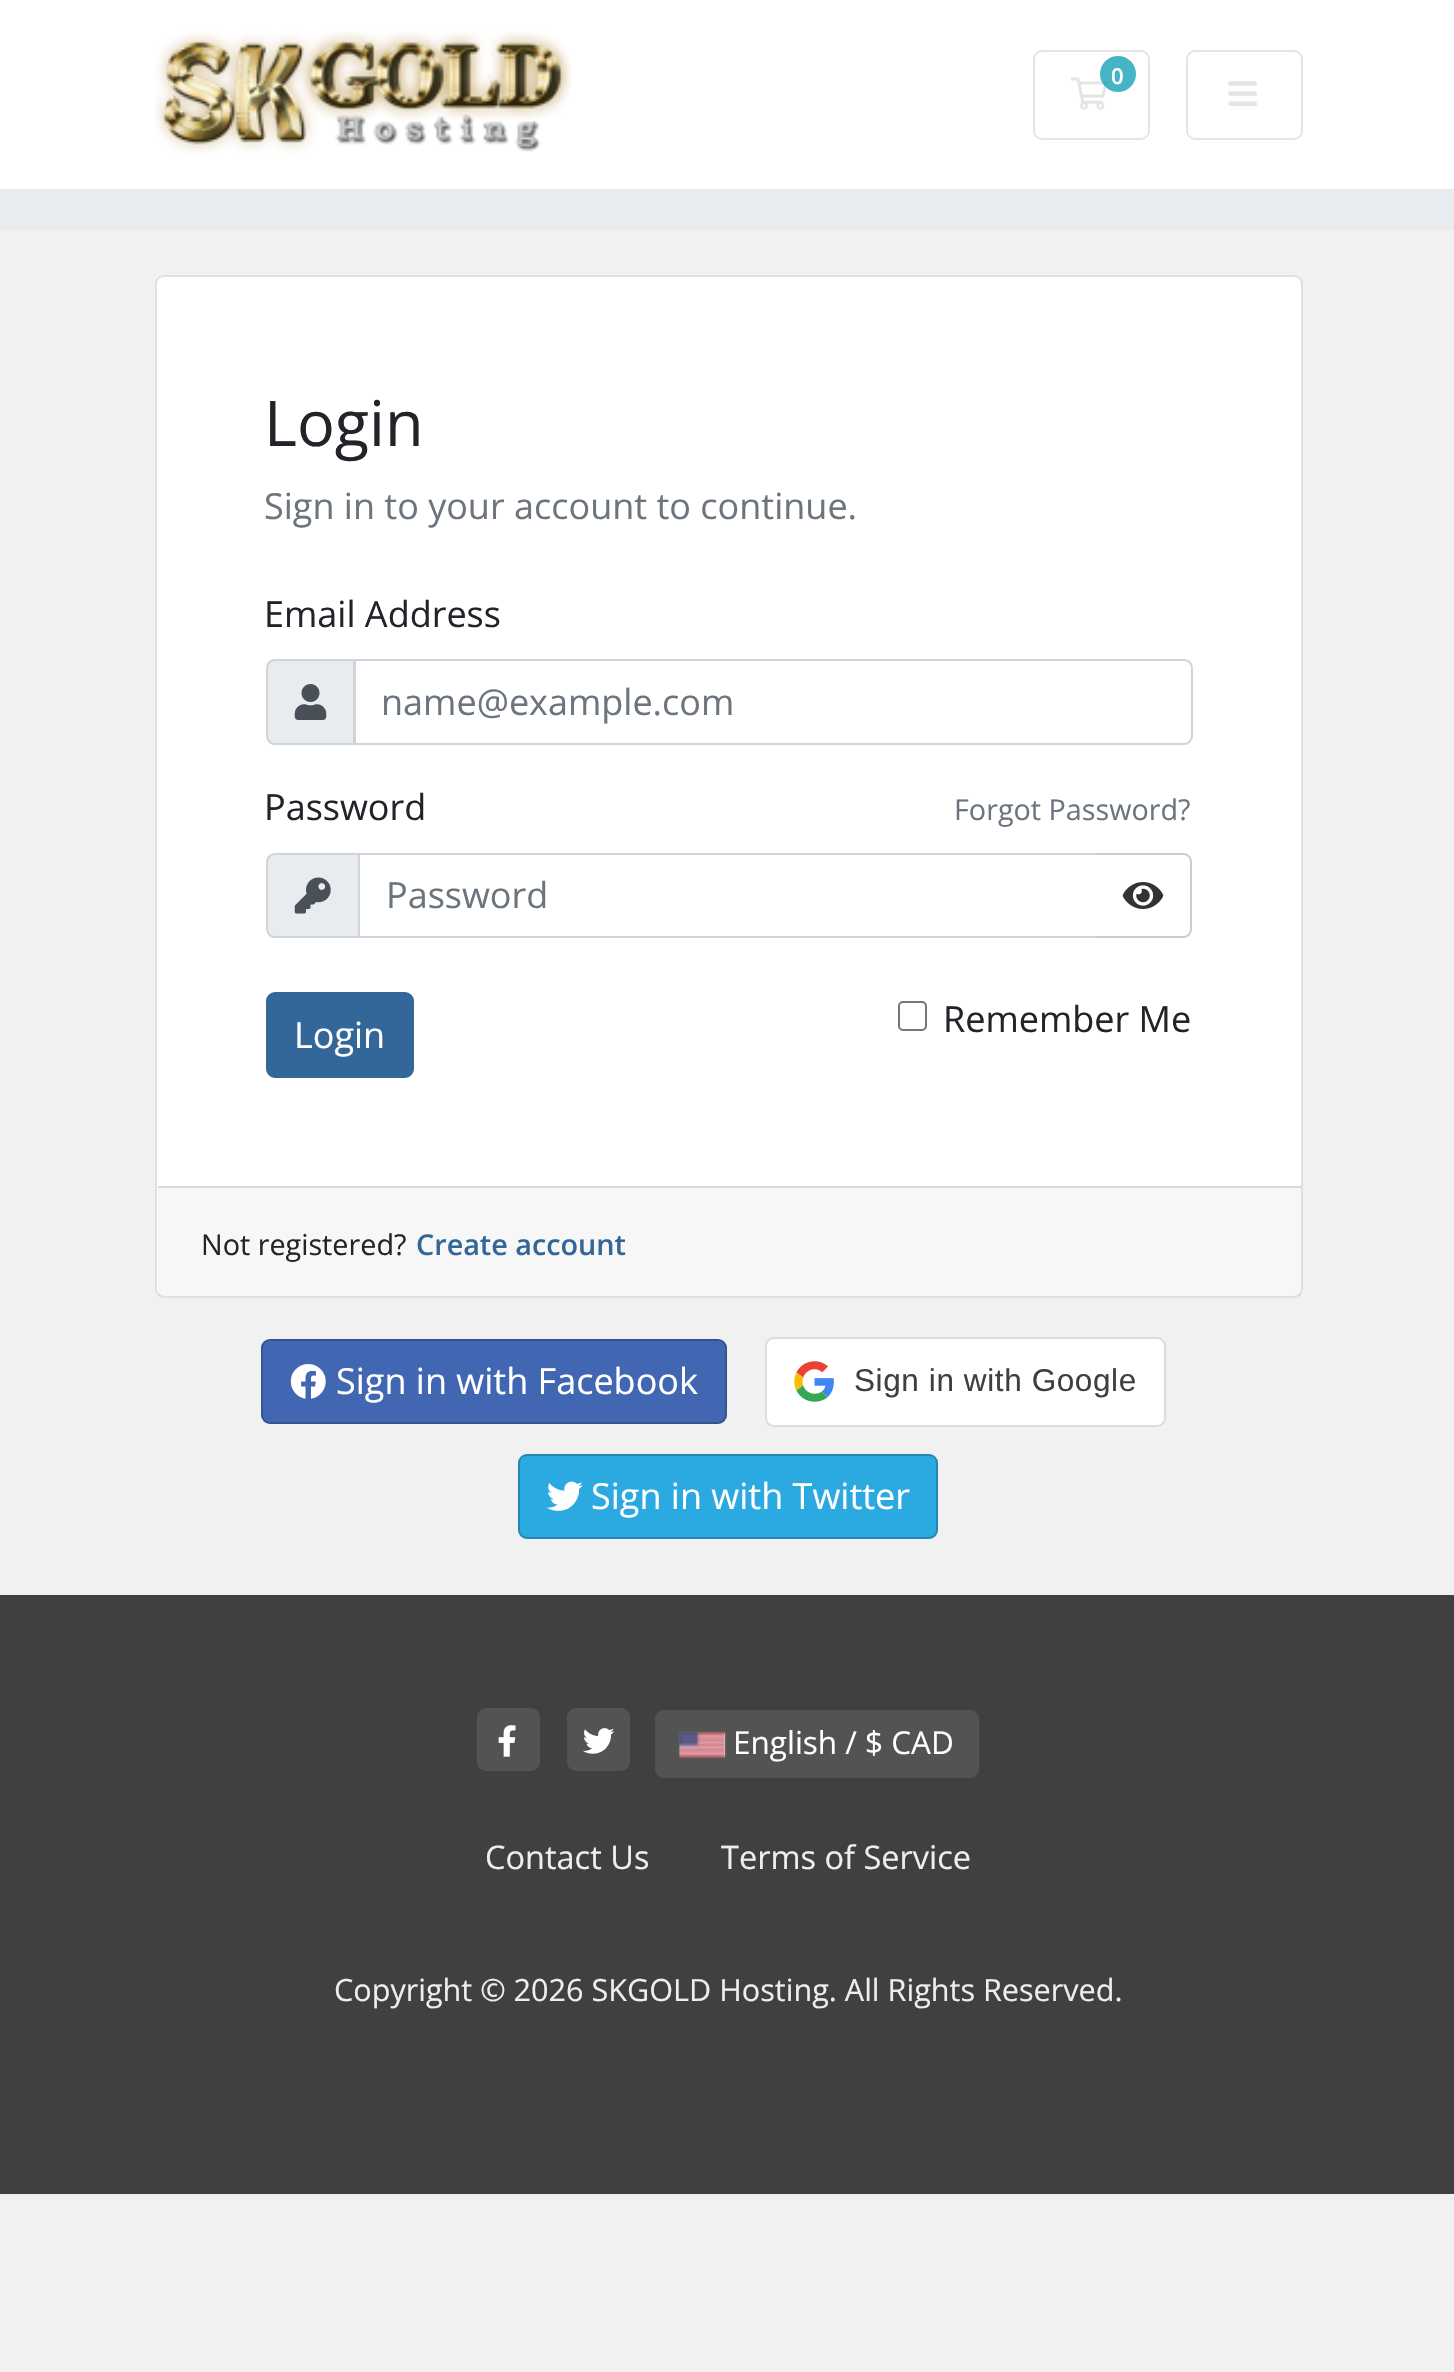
void draw(SkCanvas* canvas) {
    SkPaint paint;
    paint.setAntiAlias(true);
    auto face = [&](const char* family, int weight, float size, bool italic = false) {
        SkFontStyle style(weight, SkFontStyle::kNormal_Width,
            italic ? SkFontStyle::kItalic_Slant : SkFontStyle::kUpright_Slant);
        SkFont result(fontMgr->matchFamilyStyle(family, style), size);
        result.setSubpixel(true);
        return result;
    };
    auto write = [&](const char* s, float x, float y, const SkFont& font, SkColor color) {
        SkPaint ink(SkColor4f::FromColor(color));
        ink.setAntiAlias(true);
        canvas->drawString(s, x, y, font, ink);
    };
    auto writeSpaced = [&](const char* s, float x, float y, const SkFont& font, const SkPaint& ink, float letter, float word) {
        std::vector<SkGlyphID> glyphs(font.countText(s, strlen(s), SkTextEncoding::kUTF8));
        std::vector<float> xs(glyphs.size());
        font.textToGlyphs(s, strlen(s), SkTextEncoding::kUTF8, glyphs);
        font.getXPos(glyphs, xs, x);
        float extra = 0;
        for (size_t i = 0; i < glyphs.size(); i++) {
            xs[i] += extra;
            extra += letter + word * (glyphs[i] == font.unicharToGlyph(' '));
        }
        canvas->drawTextBlob(SkTextBlob::MakeFromPosHGlyphs(glyphs, xs, y, font), 0, 0, ink);
    };
    auto block = [&](float x, float y, float w, float h, SkColor color) {
        SkPaint ink(SkColor4f::FromColor(color));
        ink.setAntiAlias(true);
        canvas->drawRect(SkRect::MakeXYWH(x, y, w, h), ink);
    };
    auto card = [&](float x, float y, float w, float h, float radius, SkColor color) {
        SkPaint ink(SkColor4f::FromColor(color));
        ink.setAntiAlias(true);
        canvas->drawRoundRect(SkRect::MakeXYWH(x, y, w, h), radius, radius, ink);
    };
    auto paste = [&](const char* path, float x, float y, float w, float h) {
        auto image = SkImages::DeferredFromEncodedData(SkData::MakeFromFileName(path));
        canvas->drawImageRect(image, SkRect::MakeXYWH(x, y, w, h), SkSamplingOptions());
    };
    canvas->clear(SkColorSetRGB(241, 241, 241));
    block(0, 0, 1454, 189, SK_ColorWHITE);
    paste("pic1.png", 155, 31, 417, 123);
    paint.setStyle(SkPaint::kStroke_Style);
    paint.setStrokeWidth(2);
    paint.setColor(SkColorSetRGB(229, 229, 229));
    canvas->drawRoundRect(SkRect::MakeXYWH(1034, 51, 115, 88), 8, 8, paint);
    paste("pic2.png", 1071, 77, 37, 33);
    paint.setStyle(SkPaint::kFill_Style);
    paint.setColor(SkColorSetARGB(204, 23, 162, 184));
    canvas->drawCircle(1118, 74, 18, paint);
    auto kFont1 = face("Open Sans", 600, 22);
    write("0", 1111, 84, kFont1, SK_ColorWHITE);
    paint.setStyle(SkPaint::kStroke_Style);
    paint.setColor(SkColorSetRGB(229, 229, 229));
    canvas->drawRoundRect(SkRect::MakeXYWH(1187, 51, 115, 88), 8, 8, paint);
    paste("pic3.png", 1228, 81, 29, 25);
    block(0, 189, 1454, 41, SkColorSetRGB(233, 236, 239));
    card(155, 275, 1148, 1023, 9, SK_ColorWHITE);
    paint.setColor(SkColorSetARGB(31, 0, 0, 0));
    canvas->drawRoundRect(SkRect::MakeXYWH(156, 276, 1146, 1021), 8, 8, paint);
    auto kFont2 = face("Open Sans", 400, 63);
    write("Login", 264, 446, kFont2, SkColorSetRGB(33, 37, 41));
    auto kFont3 = face("Open Sans", 400, 36);
    write("Sign in to your account to continue.", 264, 519, kFont3, SkColorSetRGB(108, 117, 125));
    write("Email Address", 264, 627, kFont3, SkColorSetRGB(33, 37, 41));
    paint.setStyle(SkPaint::kFill_Style);
    paint.setColor(SkColorSetRGB(233, 236, 239));
    canvas->drawPath(SkPathBuilder().moveTo(275, 660).lineTo(355, 660).lineTo(355, 744).lineTo(275, 744).cubicTo(270.5f, 744, 267, 740.5f, 267, 736).lineTo(267, 668).cubicTo(267, 663.5f, 270.5f, 660, 275, 660).close().detach(), paint);
    paint.setStyle(SkPaint::kStroke_Style);
    paint.setColor(SkColorSetRGB(206, 212, 218));
    canvas->drawPath(SkPathBuilder().moveTo(275, 660).lineTo(355, 660).lineTo(355, 744).lineTo(275, 744).cubicTo(270.5f, 744, 267, 740.5f, 267, 736).lineTo(267, 668).cubicTo(267, 663.5f, 270.5f, 660, 275, 660).close().detach(), paint);
    paste("pic4.png", 294, 684, 33, 36);
    canvas->drawPath(SkPathBuilder().moveTo(354, 660).lineTo(1184, 660).cubicTo(1188.5f, 660, 1192, 663.5f, 1192, 668).lineTo(1192, 736).cubicTo(1192, 740.5f, 1188.5f, 744, 1184, 744).lineTo(354, 744).close().detach(), paint);
    write("name@example.com", 381, 715, kFont3, SkColorSetRGB(108, 117, 125));
    write("Password", 264, 820, kFont3, SkColorSetRGB(33, 37, 41));
    auto kFont4 = face("Open Sans", 400, 28.75f);
    write("Forgot Password?", 954, 820, kFont4, SkColorSetRGB(108, 117, 125));
    paint.setStyle(SkPaint::kFill_Style);
    paint.setColor(SkColorSetRGB(233, 236, 239));
    canvas->drawPath(SkPathBuilder().moveTo(275, 854).lineTo(359, 854).lineTo(359, 937).lineTo(275, 937).cubicTo(270.5f, 937, 267, 933.5f, 267, 929).lineTo(267, 862).cubicTo(267, 857.5f, 270.5f, 854, 275, 854).close().detach(), paint);
    paint.setStyle(SkPaint::kStroke_Style);
    paint.setColor(SkColorSetRGB(206, 212, 218));
    canvas->drawPath(SkPathBuilder().moveTo(275, 854).lineTo(359, 854).lineTo(359, 937).lineTo(275, 937).cubicTo(270.5f, 937, 267, 933.5f, 267, 929).lineTo(267, 862).cubicTo(267, 857.5f, 270.5f, 854, 275, 854).close().detach(), paint);
    paste("pic5.png", 294, 877, 37, 37);
    canvas->drawRect(SkRect::MakeXYWH(359, 854, 738, 83), paint);
    write("Password", 386, 908, kFont3, SkColorSetRGB(108, 117, 125));
    paint.setStyle(SkPaint::kFill_Style);
    paint.setColor(SK_ColorWHITE);
    canvas->drawPath(SkPathBuilder().moveTo(1096, 853).lineTo(1184, 853).cubicTo(1189, 853, 1193, 857, 1193, 862).lineTo(1193, 929).cubicTo(1193, 934, 1189, 938, 1184, 938).lineTo(1096, 938).close().detach(), paint);
    paint.setColor(SkColorSetRGB(204, 204, 204));
    canvas->drawPath(SkPathBuilder(SkPathFillType::kEvenOdd).moveTo(1096, 853).lineTo(1184, 853).cubicTo(1188, 853, 1192, 857, 1192, 862).lineTo(1192, 929).cubicTo(1192, 934, 1188, 938, 1184, 938).lineTo(1096, 938).close().moveTo(1096, 855).lineTo(1184, 855).cubicTo(1187, 855, 1190, 858, 1190, 862).lineTo(1190, 929).cubicTo(1190, 933, 1187, 936, 1184, 936).lineTo(1096, 936).close().detach(), paint);
    paste("pic6.png", 1122, 882, 42, 27);
    paint.setColor(SkColorSetRGB(51, 102, 153));
    canvas->drawRoundRect(SkRect::MakeXYWH(267, 993, 146, 84), 8, 8, paint);
    paint.setStyle(SkPaint::kStroke_Style);
    canvas->drawRoundRect(SkRect::MakeXYWH(267, 993, 146, 84), 8, 8, paint);
    write("Login", 294, 1048, kFont3, SK_ColorWHITE);
    paint.setColor(SkColorSetRGB(118, 118, 118));
    canvas->drawRoundRect(SkRect::MakeXYWH(899, 1002, 27, 28), 4, 4, paint);
    write("Remember Me", 943, 1032, kFont3, SkColorSetRGB(33, 37, 41));
    block(158, 1188, 1143, 108, SkColorSetARGB(8, 0, 0, 0));
    block(158, 1186, 1143, 2, SkColorSetRGB(216, 216, 216));
    write("Not registered?", 201, 1255, kFont4, SkColorSetRGB(33, 37, 41));
    auto kFont5 = face("Open Sans", 600, 28.75f);
    write("Create account", 416, 1255, kFont5, SkColorSetRGB(51, 102, 153));
    card(261, 1339, 466, 85, 9, SkColorSetRGB(66, 103, 178));
    paint.setColor(SkColorSetARGB(51, 0, 0, 0));
    canvas->drawRoundRect(SkRect::MakeXYWH(262, 1340, 464, 83), 8, 8, paint);
    paste("pic7.png", 290, 1364, 36, 35);
    write("Sign in with Facebook", 336, 1394, kFont3, SK_ColorWHITE);
    paint.setStyle(SkPaint::kFill_Style);
    paint.setColor(SK_ColorWHITE);
    canvas->drawRoundRect(SkRect::MakeXYWH(766, 1338, 399, 88), 8, 8, paint);
    paint.setStyle(SkPaint::kStroke_Style);
    paint.setColor(SkColorSetRGB(218, 220, 224));
    canvas->drawRoundRect(SkRect::MakeXYWH(766, 1338, 399, 88), 8, 8, paint);
    paste("pic8.png", 794, 1361, 40, 41);
    auto kFont6 = face("Liberation Sans", 400, 31.5f);
    paint.setStyle(SkPaint::kFill_Style);
    paint.setColor(SkColorSetRGB(60, 64, 67));
    writeSpaced("Sign in with Google", 854, 1391, kFont6, paint, 0.6f, 0);
    card(518, 1454, 420, 85, 9, SkColorSetRGB(43, 169, 225));
    paint.setStyle(SkPaint::kStroke_Style);
    paint.setColor(SkColorSetARGB(51, 0, 0, 0));
    canvas->drawRoundRect(SkRect::MakeXYWH(519, 1455, 418, 83), 8, 8, paint);
    paste("pic9.png", 547, 1481, 36, 30);
    write("Sign in with Twitter", 591, 1509, kFont3, SK_ColorWHITE);
    block(0, 1595, 1454, 599, SkColorSetRGB(64, 64, 64));
    card(477, 1708, 63, 63, 9, SkColorSetRGB(83, 83, 83));
    paste("pic10.png", 498, 1725, 18, 32);
    card(567, 1708, 63, 63, 9, SkColorSetRGB(83, 83, 83));
    paste("pic11.png", 583, 1728, 32, 26);
    card(655, 1710, 324, 68, 9, SkColorSetRGB(83, 83, 83));
    paint.setStyle(SkPaint::kFill_Style);
    paint.setColor(SkColorSetRGB(136, 136, 136));
    paint.setMaskFilter(SkMaskFilter::MakeBlur(kNormal_SkBlurStyle, 1));
    canvas->drawRect(SkRect::MakeXYWH(680, 1733, 45, 24), paint);
    paint.setMaskFilter(nullptr);
    block(724, 1733, 1, 24, SkColorSetRGB(219, 219, 219));
    paste("pic12.png", 679, 1732, 46, 26);
    auto kFont7 = face("Open Sans", 400, 31.5f);
    write("English / $ CAD", 733, 1754, kFont7, SK_ColorWHITE);
    auto kFont8 = face("Open Sans", 400, 32.5f);
    write("Contact Us", 485, 1869, kFont8, SkColorSetRGB(238, 238, 238));
    write("Terms of Service", 721, 1869, kFont8, SkColorSetRGB(238, 238, 238));
    auto kFont9 = face("Open Sans", 400, 30.6f);
    write("Copyright © 2026 SKGOLD Hosting. All Rights Reserved.", 334, 2001, kFont9, SkColorSetRGB(238, 238, 238));
}
